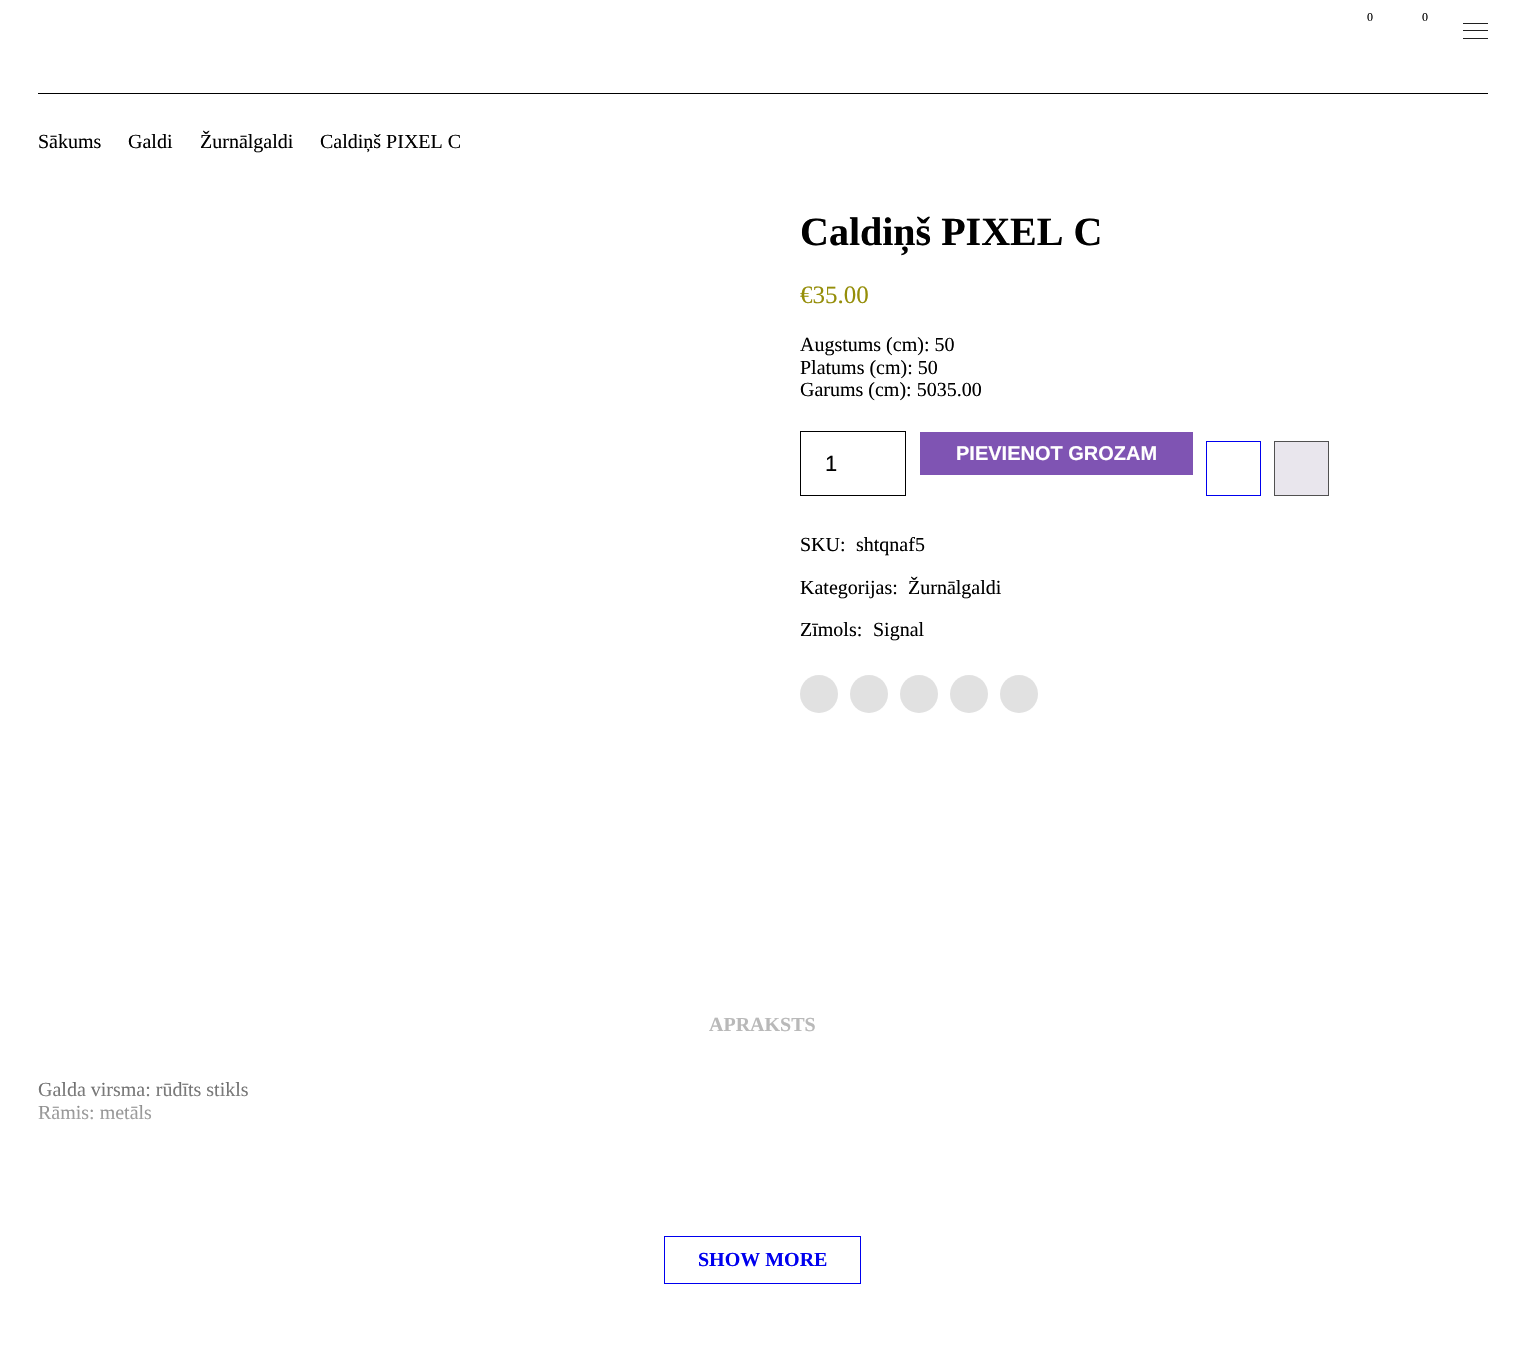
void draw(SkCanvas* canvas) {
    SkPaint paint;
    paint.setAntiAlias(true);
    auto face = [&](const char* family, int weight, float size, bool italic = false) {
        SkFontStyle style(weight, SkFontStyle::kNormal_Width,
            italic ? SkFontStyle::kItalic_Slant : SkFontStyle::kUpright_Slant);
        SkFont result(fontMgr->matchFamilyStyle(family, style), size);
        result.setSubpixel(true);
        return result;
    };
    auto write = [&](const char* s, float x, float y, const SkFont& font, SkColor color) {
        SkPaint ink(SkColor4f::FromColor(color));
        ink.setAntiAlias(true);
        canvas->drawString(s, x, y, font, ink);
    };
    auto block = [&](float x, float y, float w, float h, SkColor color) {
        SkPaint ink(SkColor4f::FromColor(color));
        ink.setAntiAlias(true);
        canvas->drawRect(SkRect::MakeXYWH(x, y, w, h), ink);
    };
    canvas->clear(SK_ColorWHITE);
    auto kFont1 = face("Liberation Serif", 400, 12);
    write("0", 1367, 21, kFont1, SK_ColorBLACK);
    write("0", 1422, 21, kFont1, SK_ColorBLACK);
    block(1463, 23, 25, 1, SkColorSetRGB(32, 32, 32));
    block(1463, 30, 25, 1, SkColorSetRGB(32, 32, 32));
    block(1463, 38, 25, 1, SkColorSetRGB(32, 32, 32));
    block(38, 93, 1450, 1, SK_ColorBLACK);
    auto kFont2 = face("Liberation Serif", 400, 20);
    write("Sākums", 38, 148, kFont2, SK_ColorBLACK);
    write("Galdi", 128, 148, kFont2, SK_ColorBLACK);
    write("Žurnālgaldi", 200, 148, kFont2, SK_ColorBLACK);
    write("Caldiņš PIXEL C", 320, 148, kFont2, SK_ColorBLACK);
    auto kFont3 = face("Liberation Serif", 700, 40);
    write("Caldiņš PIXEL C", 800, 245, kFont3, SK_ColorBLACK);
    auto kFont4 = face("Liberation Serif", 400, 25);
    write("€35.00", 800, 303, kFont4, SkColorSetRGB(149, 142, 9));
    write("Augstums (cm): 50", 800, 351, kFont2, SK_ColorBLACK);
    write("Platums (cm): 50", 800, 374, kFont2, SK_ColorBLACK);
    write("Garums (cm): 5035.00", 800, 396, kFont2, SK_ColorBLACK);
    block(920, 432, 273, 43, SkColorSetRGB(127, 84, 179));
    auto kFont5 = face("Liberation Sans", 700, 20);
    write("PIEVIENOT GROZAM", 956, 460, kFont5, SK_ColorWHITE);
    paint.setStyle(SkPaint::kStroke_Style);
    paint.setStrokeWidth(1);
    paint.setColor(SK_ColorBLACK);
    canvas->drawRect(SkRect::MakeXYWH(800.5f, 431.5f, 105, 64), paint);
    auto kFont6 = face("Liberation Sans", 400, 22);
    write("1", 825, 471, kFont6, SK_ColorBLACK);
    paint.setColor(SkColorSetRGB(0, 0, 238));
    canvas->drawRect(SkRect::MakeXYWH(1206.5f, 441.5f, 54, 54), paint);
    paint.setStyle(SkPaint::kFill_Style);
    paint.setColor(SkColorSetRGB(233, 230, 237));
    canvas->drawRect(SkRect::MakeXYWH(1274.5f, 441.5f, 54, 54), paint);
    paint.setStyle(SkPaint::kStroke_Style);
    paint.setColor(SkColorSetRGB(81, 81, 81));
    canvas->drawRect(SkRect::MakeXYWH(1274.5f, 441.5f, 54, 54), paint);
    write("SKU:", 800, 551, kFont2, SK_ColorBLACK);
    write("shtqnaf5", 856, 551, kFont2, SK_ColorBLACK);
    write("Kategorijas:", 800, 594, kFont2, SK_ColorBLACK);
    write("Žurnālgaldi", 908, 594, kFont2, SK_ColorBLACK);
    write("Zīmols:", 800, 636, kFont2, SK_ColorBLACK);
    write("Signal", 873, 636, kFont2, SK_ColorBLACK);
    paint.setStyle(SkPaint::kFill_Style);
    paint.setColor(SkColorSetRGB(225, 225, 225));
    canvas->drawCircle(819, 694, 19, paint);
    canvas->drawCircle(869, 694, 19, paint);
    canvas->drawCircle(919, 694, 19, paint);
    canvas->drawCircle(969, 694, 19, paint);
    canvas->drawCircle(1019, 694, 19, paint);
    auto kFont7 = face("Liberation Serif", 700, 20);
    write("APRAKSTS", 709, 1031, kFont7, SkColorSetRGB(185, 185, 185));
    write("Galda virsma: rūdīts stikls", 38, 1096, kFont2, SK_ColorBLACK);
    write("Rāmis: metāls", 38, 1119, kFont2, SK_ColorBLACK);
    {
        const SkColor colors[] = {SkColorSetARGB(0, 255, 255, 255), SK_ColorWHITE};
        const float stops[] = {0, 0.9f};
        const SkPoint ends[] = {{763, 1011}, {763, 1199}};
        paint.setShader(SkGradientShader::MakeLinear(ends, colors, stops, 2, SkTileMode::kClamp));
        paint.setAlpha(255);
    }
    canvas->drawRect(SkRect::MakeXYWH(38, 1082, 210, 38), paint);
    paint.setStyle(SkPaint::kStroke_Style);
    paint.setShader(nullptr);
    paint.setColor(SkColorSetRGB(0, 0, 238));
    canvas->drawRect(SkRect::MakeXYWH(664.5f, 1236.5f, 196, 47), paint);
    write("SHOW MORE", 698, 1266, kFont7, SkColorSetRGB(0, 0, 238));
}
